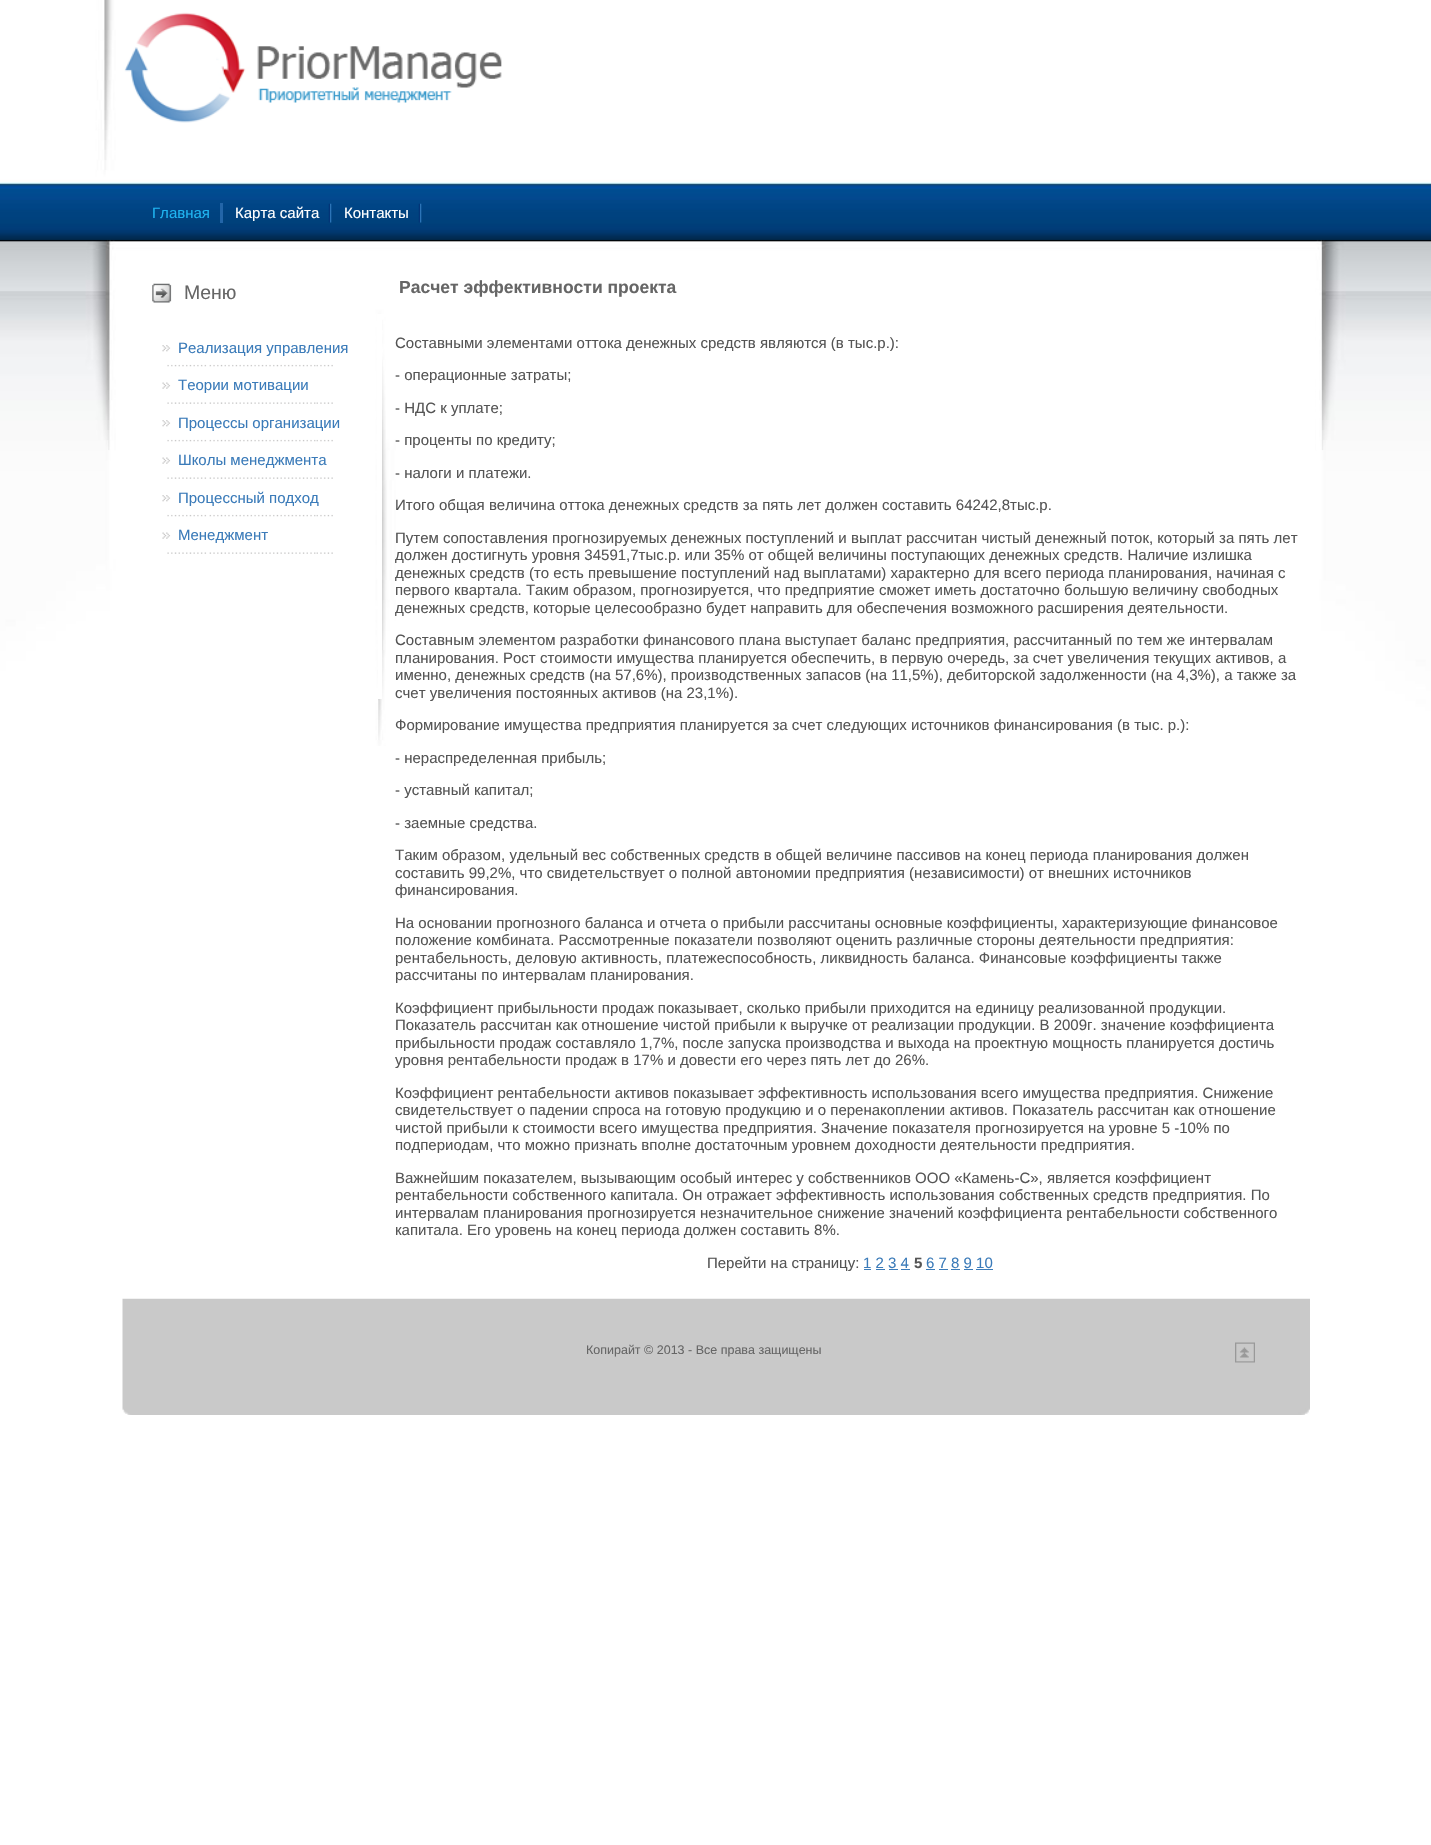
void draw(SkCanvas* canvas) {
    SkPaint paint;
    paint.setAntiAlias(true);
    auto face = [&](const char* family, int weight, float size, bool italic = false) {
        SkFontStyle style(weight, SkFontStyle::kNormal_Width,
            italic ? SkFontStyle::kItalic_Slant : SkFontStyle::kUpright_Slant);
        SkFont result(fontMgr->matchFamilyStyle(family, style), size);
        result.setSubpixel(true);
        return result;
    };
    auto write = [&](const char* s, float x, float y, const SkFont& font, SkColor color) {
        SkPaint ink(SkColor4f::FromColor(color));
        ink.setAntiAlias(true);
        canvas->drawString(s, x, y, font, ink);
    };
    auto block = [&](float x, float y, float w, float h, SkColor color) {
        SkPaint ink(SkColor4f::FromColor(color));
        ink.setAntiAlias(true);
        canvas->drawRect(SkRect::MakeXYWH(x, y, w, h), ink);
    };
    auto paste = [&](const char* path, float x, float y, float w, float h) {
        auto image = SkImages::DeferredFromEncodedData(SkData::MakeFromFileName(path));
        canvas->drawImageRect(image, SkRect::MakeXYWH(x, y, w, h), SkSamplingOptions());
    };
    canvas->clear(SK_ColorWHITE);
    paste("pic1.png", 0, 0, 1431, 746);
    paste("pic2.png", 124, 12, 378, 111);
    block(220, 203, 3, 20, SkColorSetRGB(35, 101, 168));
    auto kFont1 = face("Liberation Sans", 400, 15);
    write("Главная", 152, 218, kFont1, SkColorSetRGB(31, 180, 241));
    paste("pic3.png", 328, 203, 4, 20);
    write("Карта сайта", 235, 218, kFont1, SK_ColorWHITE);
    paste("pic3.png", 418, 203, 4, 20);
    write("Контакты", 344, 218, kFont1, SK_ColorWHITE);
    block(377, 314, 5, 265, SK_ColorWHITE);
    paste("pic4.png", 152, 283, 20, 20);
    auto kFont2 = face("Liberation Sans", 400, 19.5f);
    write("Меню", 184, 299, kFont2, SkColorSetRGB(102, 102, 102));
    paste("pic5.png", 162, 345, 171, 22);
    write("Реализация управления", 178, 353, kFont1, SkColorSetRGB(59, 123, 185));
    paste("pic6.png", 162, 382, 171, 22);
    write("Теории мотивации", 178, 390, kFont1, SkColorSetRGB(59, 123, 185));
    paste("pic5.png", 162, 420, 171, 22);
    write("Процессы организации", 178, 428, kFont1, SkColorSetRGB(59, 123, 185));
    paste("pic6.png", 162, 457, 171, 22);
    write("Школы менеджмента", 178, 465, kFont1, SkColorSetRGB(59, 123, 185));
    paste("pic5.png", 162, 495, 171, 22);
    write("Процессный подход", 178, 503, kFont1, SkColorSetRGB(59, 123, 185));
    paste("pic6.png", 162, 532, 171, 22);
    write("Менеджмент", 178, 540, kFont1, SkColorSetRGB(59, 123, 185));
    block(378, 579, 4, 120, SK_ColorWHITE);
    block(1316, 290, 3, 160, SK_ColorWHITE);
    auto kFont3 = face("Liberation Sans", 700, 17.5f);
    write("Расчет эффективности проекта", 399, 293, kFont3, SkColorSetRGB(102, 102, 102));
    write("Составными элементами оттока денежных средств являются (в тыс.р.):", 395, 348, kFont1, SkColorSetRGB(85, 85, 85));
    write("- операционные затраты;", 395, 380, kFont1, SkColorSetRGB(85, 85, 85));
    write("- НДС к уплате;", 395, 413, kFont1, SkColorSetRGB(85, 85, 85));
    write("- проценты по кредиту;", 395, 445, kFont1, SkColorSetRGB(85, 85, 85));
    write("- налоги и платежи.", 395, 478, kFont1, SkColorSetRGB(85, 85, 85));
    write("Итого общая величина оттока денежных средств за пять лет должен составить 64242,8тыс.р.", 395, 510, kFont1, SkColorSetRGB(85, 85, 85));
    write("Путем сопоставления прогнозируемых денежных поступлений и выплат рассчитан чистый денежный поток, который за пять лет", 395, 543, kFont1, SkColorSetRGB(85, 85, 85));
    write("должен достигнуть уровня 34591,7тыс.р. или 35% от общей величины поступающих денежных средств. Наличие излишка", 395, 560, kFont1, SkColorSetRGB(85, 85, 85));
    write("денежных средств (то есть превышение поступлений над выплатами) характерно для всего периода планирования, начиная с", 395, 578, kFont1, SkColorSetRGB(85, 85, 85));
    write("первого квартала. Таким образом, прогнозируется, что предприятие сможет иметь достаточно большую величину свободных", 395, 595, kFont1, SkColorSetRGB(85, 85, 85));
    write("денежных средств, которые целесообразно будет направить для обеспечения возможного расширения деятельности.", 395, 613, kFont1, SkColorSetRGB(85, 85, 85));
    write("Составным элементом разработки финансового плана выступает баланс предприятия, рассчитанный по тем же интервалам", 395, 645, kFont1, SkColorSetRGB(85, 85, 85));
    write("планирования. Рост стоимости имущества планируется обеспечить, в первую очередь, за счет увеличения текущих активов, а", 395, 663, kFont1, SkColorSetRGB(85, 85, 85));
    write("именно, денежных средств (на 57,6%), производственных запасов (на 11,5%), дебиторской задолженности (на 4,3%), а также за", 395, 680, kFont1, SkColorSetRGB(85, 85, 85));
    write("счет увеличения постоянных активов (на 23,1%).", 395, 698, kFont1, SkColorSetRGB(85, 85, 85));
    write("Формирование имущества предприятия планируется за счет следующих источников финансирования (в тыс. р.):", 395, 730, kFont1, SkColorSetRGB(85, 85, 85));
    write("- нераспределенная прибыль;", 395, 763, kFont1, SkColorSetRGB(85, 85, 85));
    write("- уставный капитал;", 395, 795, kFont1, SkColorSetRGB(85, 85, 85));
    write("- заемные средства.", 395, 828, kFont1, SkColorSetRGB(85, 85, 85));
    write("Таким образом, удельный вес собственных средств в общей величине пассивов на конец периода планирования должен", 395, 860, kFont1, SkColorSetRGB(85, 85, 85));
    write("составить 99,2%, что свидетельствует о полной автономии предприятия (независимости) от внешних источников", 395, 878, kFont1, SkColorSetRGB(85, 85, 85));
    write("финансирования.", 395, 895, kFont1, SkColorSetRGB(85, 85, 85));
    write("На основании прогнозного баланса и отчета о прибыли рассчитаны основные коэффициенты, характеризующие финансовое", 395, 928, kFont1, SkColorSetRGB(85, 85, 85));
    write("положение комбината. Рассмотренные показатели позволяют оценить различные стороны деятельности предприятия:", 395, 945, kFont1, SkColorSetRGB(85, 85, 85));
    write("рентабельность, деловую активность, платежеспособность, ликвидность баланса. Финансовые коэффициенты также", 395, 963, kFont1, SkColorSetRGB(85, 85, 85));
    write("рассчитаны по интервалам планирования.", 395, 980, kFont1, SkColorSetRGB(85, 85, 85));
    write("Коэффициент прибыльности продаж показывает, сколько прибыли приходится на единицу реализованной продукции.", 395, 1013, kFont1, SkColorSetRGB(85, 85, 85));
    write("Показатель рассчитан как отношение чистой прибыли к выручке от реализации продукции. В 2009г. значение коэффициента", 395, 1030, kFont1, SkColorSetRGB(85, 85, 85));
    write("прибыльности продаж составляло 1,7%, после запуска производства и выхода на проектную мощность планируется достичь", 395, 1048, kFont1, SkColorSetRGB(85, 85, 85));
    write("уровня рентабельности продаж в 17% и довести его через пять лет до 26%.", 395, 1065, kFont1, SkColorSetRGB(85, 85, 85));
    write("Коэффициент рентабельности активов показывает эффективность использования всего имущества предприятия. Снижение", 395, 1098, kFont1, SkColorSetRGB(85, 85, 85));
    write("свидетельствует о падении спроса на готовую продукцию и о перенакоплении активов. Показатель рассчитан как отношение", 395, 1115, kFont1, SkColorSetRGB(85, 85, 85));
    write("чистой прибыли к стоимости всего имущества предприятия. Значение показателя прогнозируется на уровне 5 -10% по", 395, 1133, kFont1, SkColorSetRGB(85, 85, 85));
    write("подпериодам, что можно признать вполне достаточным уровнем доходности деятельности предприятия.", 395, 1150, kFont1, SkColorSetRGB(85, 85, 85));
    write("Важнейшим показателем, вызывающим особый интерес у собственников ООО «Камень-С», является коэффициент", 395, 1183, kFont1, SkColorSetRGB(85, 85, 85));
    write("рентабельности собственного капитала. Он отражает эффективность использования собственных средств предприятия. По", 395, 1200, kFont1, SkColorSetRGB(85, 85, 85));
    write("интервалам планирования прогнозируется незначительное снижение значений коэффициента рентабельности собственного", 395, 1218, kFont1, SkColorSetRGB(85, 85, 85));
    write("капитала. Его уровень на конец периода должен составить 8%.", 395, 1235, kFont1, SkColorSetRGB(85, 85, 85));
    write("Перейти на страницу:", 707, 1268, kFont1, SkColorSetRGB(85, 85, 85));
    write("1 2 3 4", 863, 1268, kFont1, SkColorSetRGB(59, 123, 185));
    block(864, 1269, 7, 1, SkColorSetRGB(59, 123, 185));
    auto kFont4 = face("Liberation Sans", 700, 15);
    write("5", 914, 1268, kFont4, SkColorSetRGB(85, 85, 85));
    write("6 7 8 9 10", 926, 1268, kFont1, SkColorSetRGB(59, 123, 185));
    block(926, 1269, 9, 1, SkColorSetRGB(59, 123, 185));
    block(876, 1269, 9, 1, SkColorSetRGB(59, 123, 185));
    block(889, 1269, 9, 1, SkColorSetRGB(59, 123, 185));
    block(901, 1269, 9, 1, SkColorSetRGB(59, 123, 185));
    block(939, 1269, 9, 1, SkColorSetRGB(59, 123, 185));
    block(951, 1269, 9, 1, SkColorSetRGB(59, 123, 185));
    block(964, 1269, 9, 1, SkColorSetRGB(59, 123, 185));
    block(976, 1269, 17, 1, SkColorSetRGB(59, 123, 185));
    paste("pic7.png", 122, 1298, 1188, 117);
    auto kFont5 = face("Liberation Sans", 400, 12.5f);
    write("Копирайт © 2013 - Все права защищены", 586, 1354, kFont5, SkColorSetRGB(102, 102, 102));
    paste("pic8.png", 1235, 1342, 20, 21);
}
